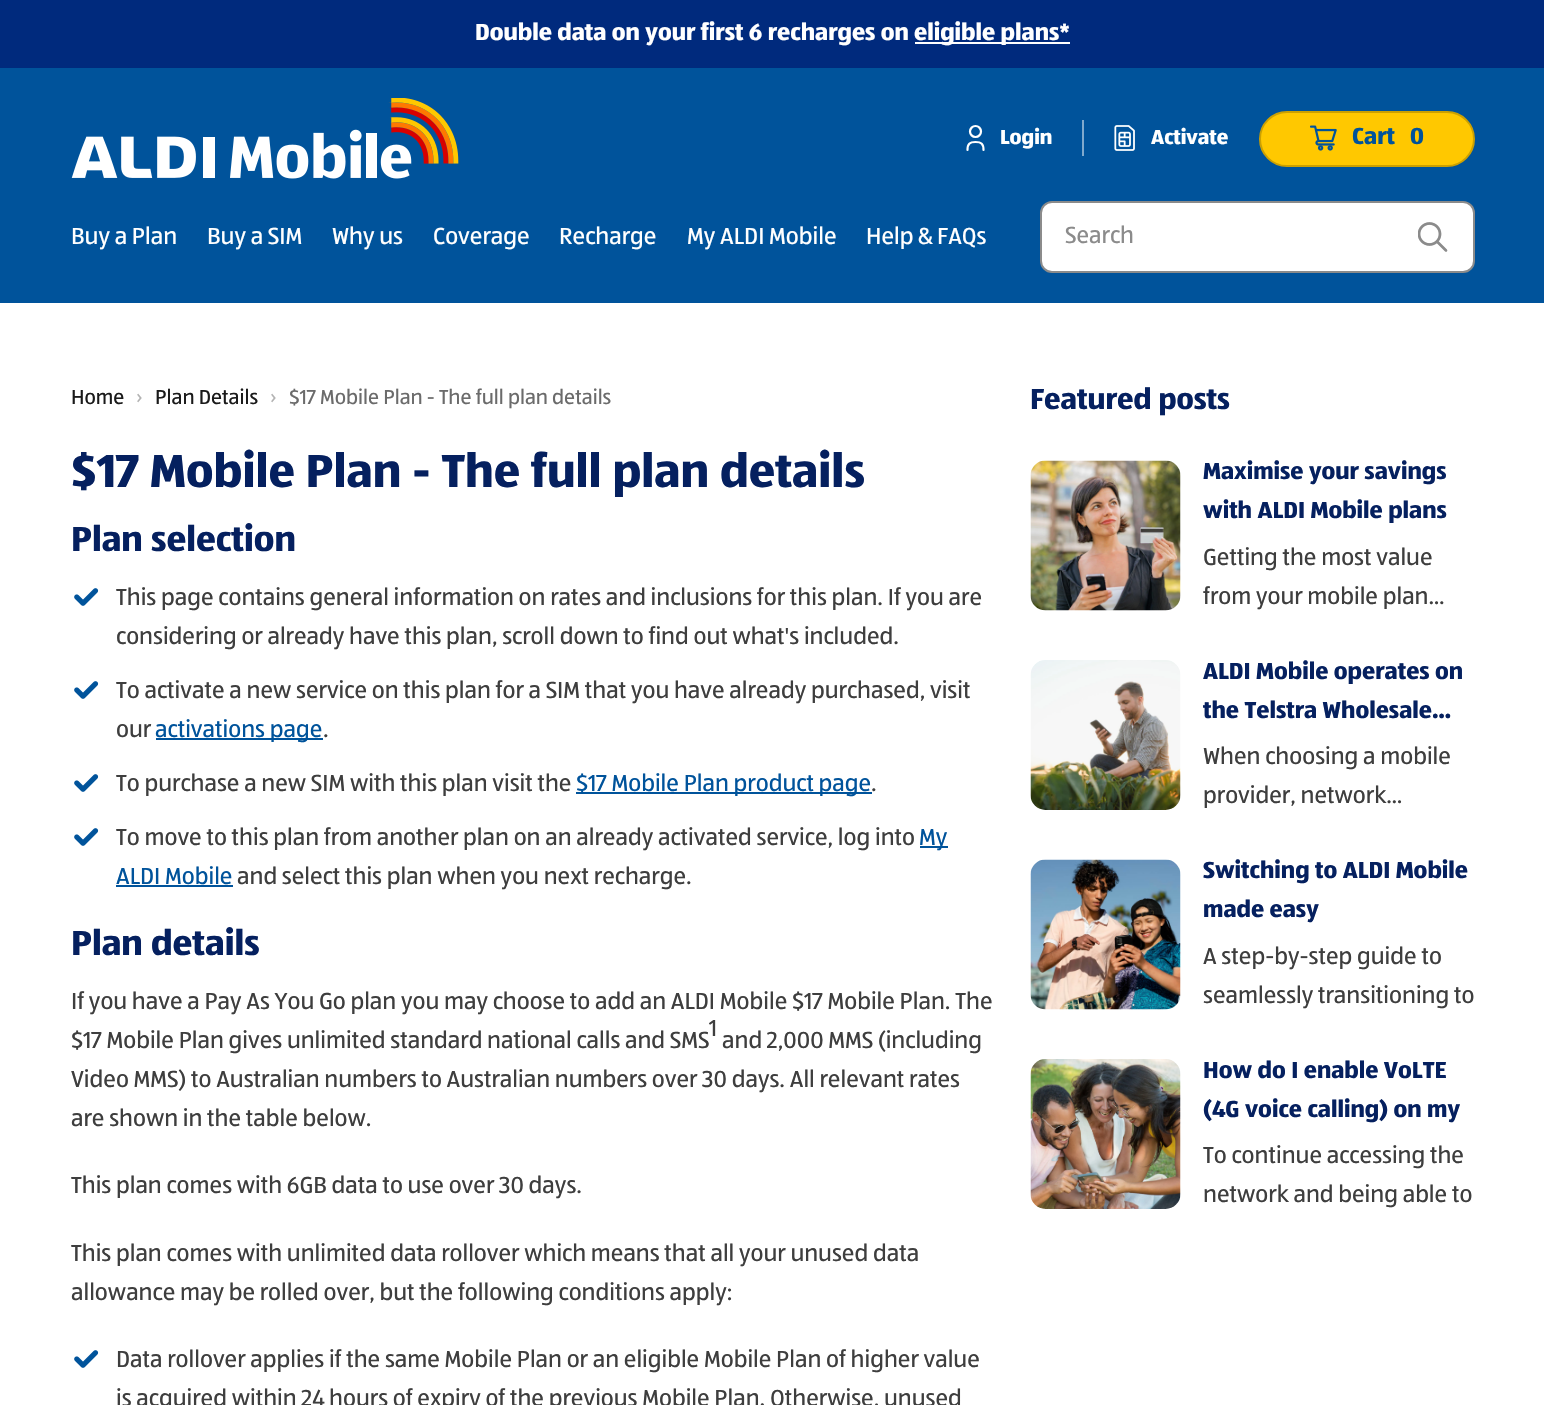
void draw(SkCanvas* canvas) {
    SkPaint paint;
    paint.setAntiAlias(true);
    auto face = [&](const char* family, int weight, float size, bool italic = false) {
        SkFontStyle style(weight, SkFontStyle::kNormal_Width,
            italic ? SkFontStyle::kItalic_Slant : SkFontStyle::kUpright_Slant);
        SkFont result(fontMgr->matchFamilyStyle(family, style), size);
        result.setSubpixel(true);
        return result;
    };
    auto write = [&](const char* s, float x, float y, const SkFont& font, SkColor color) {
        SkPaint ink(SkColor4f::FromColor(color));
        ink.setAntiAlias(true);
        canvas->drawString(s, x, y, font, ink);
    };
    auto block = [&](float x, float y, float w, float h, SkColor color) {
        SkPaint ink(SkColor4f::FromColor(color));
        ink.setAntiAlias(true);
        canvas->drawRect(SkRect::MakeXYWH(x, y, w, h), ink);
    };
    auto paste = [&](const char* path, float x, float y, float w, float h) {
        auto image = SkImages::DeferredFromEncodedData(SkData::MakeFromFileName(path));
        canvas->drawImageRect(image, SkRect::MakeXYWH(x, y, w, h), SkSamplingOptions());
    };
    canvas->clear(SK_ColorWHITE);
    block(0, 0, 1544, 68, SkColorSetRGB(0, 42, 125));
    auto kFont1 = face("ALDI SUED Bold", 700, 24);
    write("Double data on your first 6 recharges on", 475, 40, kFont1, SK_ColorWHITE);
    block(915, 42, 155, 2, SK_ColorWHITE);
    write("eligible plans*", 914, 40, kFont1, SK_ColorWHITE);
    block(0, 68, 1544, 235, SkColorSetRGB(0, 83, 155));
    paste("pic1.png", 71, 98, 388, 81);
    paint.setStyle(SkPaint::kStroke_Style);
    paint.setStrokeWidth(2.2f);
    paint.setColor(SK_ColorWHITE);
    canvas->drawCircle(975.5f, 131.5f, 5.5f, paint);
    paint.setStrokeCap(SkPaint::kRound_Cap);
    paint.setStrokeJoin(SkPaint::kRound_Join);
    canvas->drawPath(SkPathBuilder().moveTo(967.5f, 150).cubicTo(967.5f, 144, 969.5f, 142, 975.5f, 142).cubicTo(981.5f, 142, 983.5f, 144, 983.5f, 150).detach(), paint);
    auto kFont2 = face("ALDI SUED Bold", 700, 21);
    write("Login", 1000, 144, kFont2, SK_ColorWHITE);
    block(1082, 120, 2, 36, SkColorSetRGB(128, 169, 205));
    paste("pic2.png", 1114, 125, 21, 26);
    write("Activate", 1151, 144, kFont2, SK_ColorWHITE);
    paint.setStyle(SkPaint::kFill_Style);
    paint.setColor(SkColorSetRGB(255, 200, 0));
    canvas->drawRoundRect(SkRect::MakeXYWH(1260, 112, 214, 54), 27, 27, paint);
    paint.setStyle(SkPaint::kStroke_Style);
    paint.setStrokeWidth(2);
    paint.setStrokeCap(SkPaint::kButt_Cap);
    paint.setStrokeJoin(SkPaint::kMiter_Join);
    paint.setColor(SkColorSetRGB(204, 160, 0));
    canvas->drawRoundRect(SkRect::MakeXYWH(1260, 112, 214, 54), 27, 27, paint);
    paste("pic3.png", 1310, 125, 27, 26);
    write("Cart", 1352, 144, kFont1, SkColorSetRGB(0, 83, 155));
    write("0", 1410, 144, kFont1, SkColorSetRGB(0, 83, 155));
    auto kFont3 = face("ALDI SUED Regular", 400, 24);
    write("Buy a Plan", 71, 244, kFont3, SK_ColorWHITE);
    write("Buy a SIM", 207, 244, kFont3, SK_ColorWHITE);
    write("Why us", 332, 244, kFont3, SK_ColorWHITE);
    write("Coverage", 433, 244, kFont3, SK_ColorWHITE);
    write("Recharge", 559, 244, kFont3, SK_ColorWHITE);
    write("My ALDI Mobile", 687, 244, kFont3, SK_ColorWHITE);
    write("Help & FAQs", 866, 244, kFont3, SK_ColorWHITE);
    paint.setStyle(SkPaint::kFill_Style);
    paint.setColor(SK_ColorWHITE);
    canvas->drawRoundRect(SkRect::MakeXYWH(1041, 202, 433, 70), 11, 11, paint);
    paint.setStyle(SkPaint::kStroke_Style);
    paint.setColor(SkColorSetRGB(139, 139, 139));
    canvas->drawRoundRect(SkRect::MakeXYWH(1041, 202, 433, 70), 11, 11, paint);
    write("Search", 1065, 243, kFont3, SkColorSetRGB(139, 139, 139));
    paste("pic4.png", 1418, 222, 30, 30);
    auto kFont4 = face("ALDI SUED Regular", 400, 21);
    write("Home", 71, 404, kFont4, SkColorSetRGB(26, 26, 26));
    write("›", 136, 404, kFont4, SkColorSetRGB(179, 179, 179));
    write("Plan Details", 155, 404, kFont4, SkColorSetRGB(26, 26, 26));
    write("›", 270, 404, kFont4, SkColorSetRGB(179, 179, 179));
    write("$17 Mobile Plan - The full plan details", 289, 404, kFont4, SkColorSetRGB(107, 107, 107));
    auto kFont5 = face("ALDI SUED Bold", 700, 48);
    write("$17 Mobile Plan - The full plan details", 71, 487, kFont5, SkColorSetRGB(5, 32, 95));
    auto kFont6 = face("ALDI SUED Bold", 700, 36);
    write("Plan selection", 71, 551, kFont6, SkColorSetRGB(5, 32, 95));
    paste("pic5.png", 74, 588, 25, 18);
    write("This page contains general information on rates and inclusions for this plan. If you are", 116, 605, kFont3, SkColorSetRGB(62, 62, 62));
    write("considering or already have this plan, scroll down to find out what's included.", 116, 644, kFont3, SkColorSetRGB(62, 62, 62));
    paste("pic5.png", 74, 681, 25, 18);
    write("To activate a new service on this plan for a SIM that you have already purchased, visit", 116, 698, kFont3, SkColorSetRGB(62, 62, 62));
    write("our", 116, 737, kFont3, SkColorSetRGB(62, 62, 62));
    block(156, 738, 167, 2, SkColorSetRGB(0, 83, 155));
    write("activations page", 155, 737, kFont3, SkColorSetRGB(0, 83, 155));
    write(".", 323, 737, kFont3, SkColorSetRGB(62, 62, 62));
    paste("pic5.png", 74, 774, 25, 18);
    write("To purchase a new SIM with this plan visit the", 116, 791, kFont3, SkColorSetRGB(62, 62, 62));
    block(576, 792, 296, 2, SkColorSetRGB(0, 83, 155));
    write("$17 Mobile Plan product page", 576, 791, kFont3, SkColorSetRGB(0, 83, 155));
    write(".", 871, 791, kFont3, SkColorSetRGB(62, 62, 62));
    paste("pic5.png", 74, 828, 25, 18);
    write("To move to this plan from another plan on an already activated service, log into", 116, 845, kFont3, SkColorSetRGB(62, 62, 62));
    block(920, 846, 28, 2, SkColorSetRGB(0, 83, 155));
    write("My", 919, 845, kFont3, SkColorSetRGB(0, 83, 155));
    write("ALDI Mobile", 116, 884, kFont3, SkColorSetRGB(0, 83, 155));
    block(116, 885, 117, 2, SkColorSetRGB(0, 83, 155));
    write("and select this plan when you next recharge.", 237, 884, kFont3, SkColorSetRGB(62, 62, 62));
    write("Plan details", 71, 955, kFont6, SkColorSetRGB(5, 32, 95));
    write("If you have a Pay As You Go plan you may choose to add an ALDI Mobile $17 Mobile Plan. The", 71, 1009, kFont3, SkColorSetRGB(62, 62, 62));
    write("1", 709, 1036, kFont3, SkColorSetRGB(62, 62, 62));
    write("$17 Mobile Plan gives unlimited standard national calls and SMS", 71, 1048, kFont3, SkColorSetRGB(62, 62, 62));
    write("and 2,000 MMS (including", 722, 1048, kFont3, SkColorSetRGB(62, 62, 62));
    write("Video MMS) to Australian numbers to Australian numbers over 30 days. All relevant rates", 71, 1087, kFont3, SkColorSetRGB(62, 62, 62));
    write("are shown in the table below.", 71, 1126, kFont3, SkColorSetRGB(62, 62, 62));
    write("This plan comes with 6GB data to use over 30 days.", 71, 1193, kFont3, SkColorSetRGB(62, 62, 62));
    write("This plan comes with unlimited data rollover which means that all your unused data", 71, 1261, kFont3, SkColorSetRGB(62, 62, 62));
    write("allowance may be rolled over, but the following conditions apply:", 71, 1300, kFont3, SkColorSetRGB(62, 62, 62));
    paste("pic5.png", 74, 1350, 25, 18);
    write("Data rollover applies if the same Mobile Plan or an eligible Mobile Plan of higher value", 116, 1367, kFont3, SkColorSetRGB(62, 62, 62));
    write("is acquired within 24 hours of expiry of the previous Mobile Plan. Otherwise, unused", 116, 1406, kFont3, SkColorSetRGB(62, 62, 62));
    auto kFont7 = face("ALDI SUED Bold", 700, 30);
    write("Featured posts", 1030, 409, kFont7, SkColorSetRGB(5, 32, 95));
    paste("pic6.png", 1030, 460, 151, 151);
    write("Maximise your savings", 1203, 479, kFont1, SkColorSetRGB(5, 32, 95));
    write("with ALDI Mobile plans", 1203, 518, kFont1, SkColorSetRGB(5, 32, 95));
    write("Getting the most value", 1203, 565, kFont3, SkColorSetRGB(62, 62, 62));
    write("from your mobile plan…", 1203, 604, kFont3, SkColorSetRGB(62, 62, 62));
    paste("pic7.png", 1030, 660, 151, 150);
    write("ALDI Mobile operates on", 1203, 679, kFont1, SkColorSetRGB(5, 32, 95));
    write("the Telstra Wholesale…", 1203, 718, kFont1, SkColorSetRGB(5, 32, 95));
    write("When choosing a mobile", 1203, 764, kFont3, SkColorSetRGB(62, 62, 62));
    write("provider, network…", 1203, 803, kFont3, SkColorSetRGB(62, 62, 62));
    paste("pic8.png", 1030, 859, 151, 151);
    write("Switching to ALDI Mobile", 1203, 878, kFont1, SkColorSetRGB(5, 32, 95));
    write("made easy", 1203, 917, kFont1, SkColorSetRGB(5, 32, 95));
    write("A step-by-step guide to", 1203, 964, kFont3, SkColorSetRGB(62, 62, 62));
    write("seamlessly transitioning to", 1203, 1003, kFont3, SkColorSetRGB(62, 62, 62));
    paste("pic9.png", 1030, 1059, 151, 150);
    write("How do I enable VoLTE", 1203, 1078, kFont1, SkColorSetRGB(5, 32, 95));
    write("(4G voice calling) on my", 1203, 1117, kFont1, SkColorSetRGB(5, 32, 95));
    write("To continue accessing the", 1203, 1163, kFont3, SkColorSetRGB(62, 62, 62));
    write("network and being able to", 1203, 1202, kFont3, SkColorSetRGB(62, 62, 62));
}
